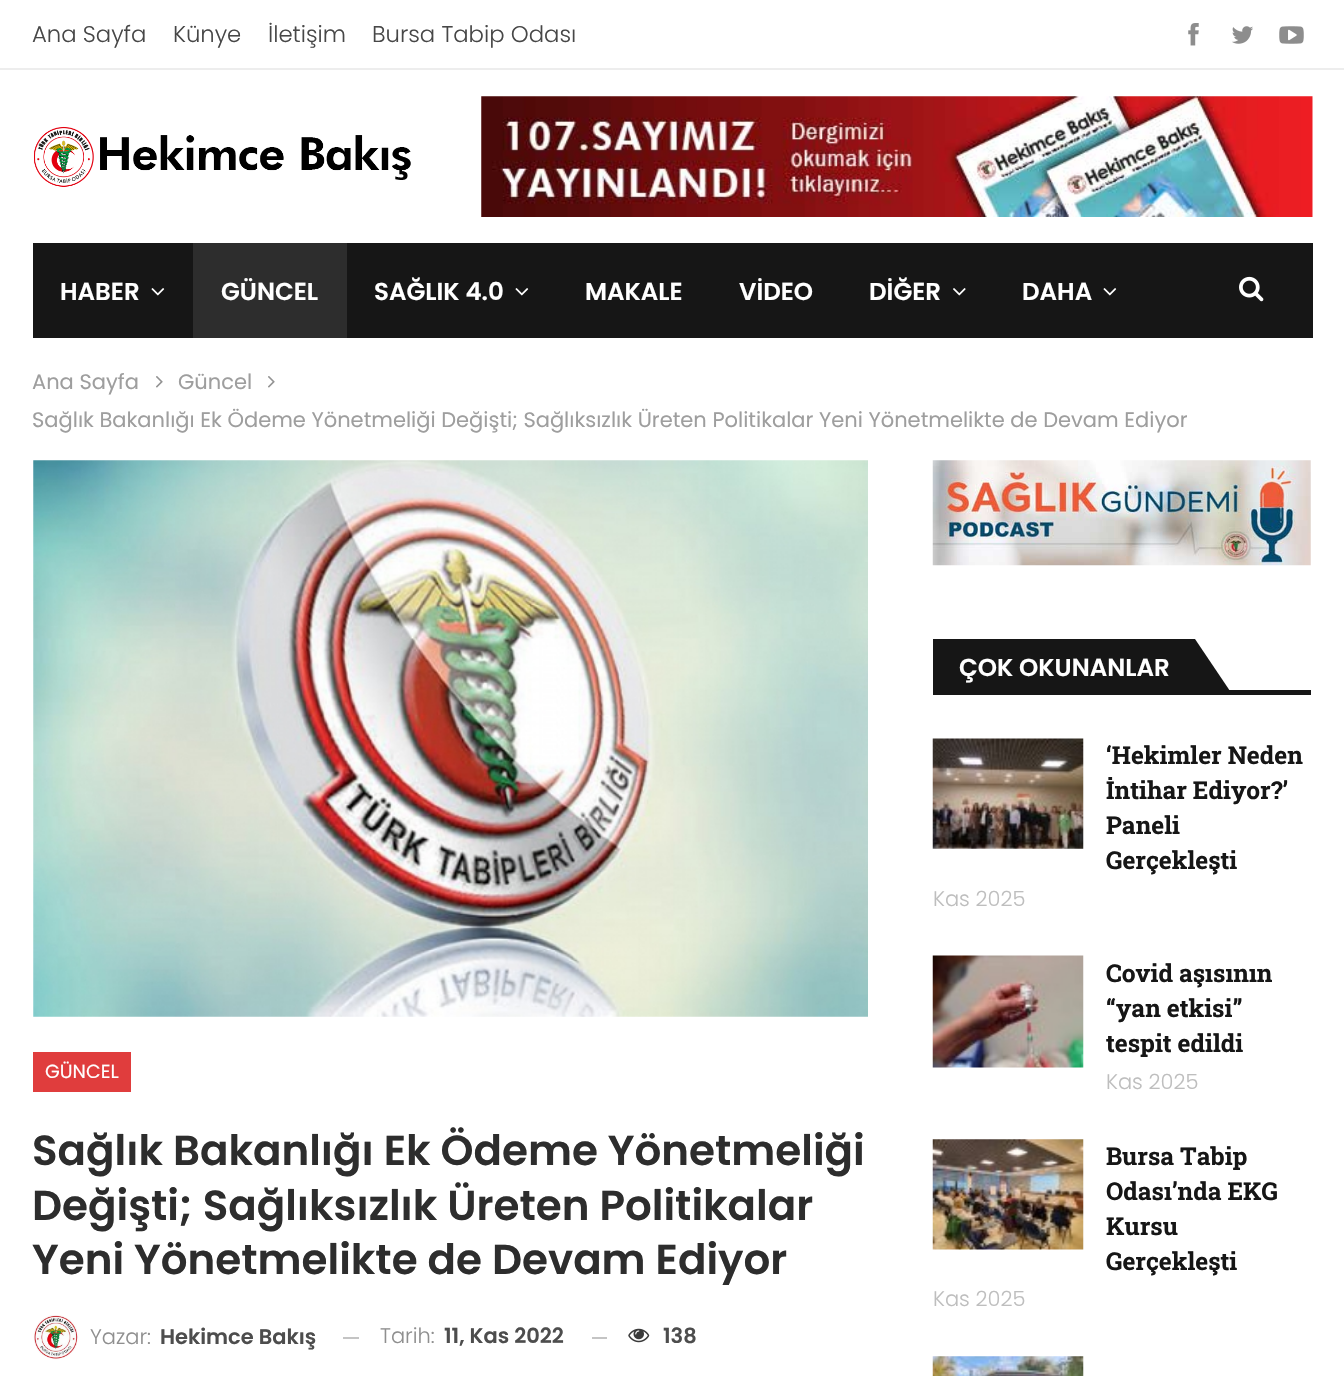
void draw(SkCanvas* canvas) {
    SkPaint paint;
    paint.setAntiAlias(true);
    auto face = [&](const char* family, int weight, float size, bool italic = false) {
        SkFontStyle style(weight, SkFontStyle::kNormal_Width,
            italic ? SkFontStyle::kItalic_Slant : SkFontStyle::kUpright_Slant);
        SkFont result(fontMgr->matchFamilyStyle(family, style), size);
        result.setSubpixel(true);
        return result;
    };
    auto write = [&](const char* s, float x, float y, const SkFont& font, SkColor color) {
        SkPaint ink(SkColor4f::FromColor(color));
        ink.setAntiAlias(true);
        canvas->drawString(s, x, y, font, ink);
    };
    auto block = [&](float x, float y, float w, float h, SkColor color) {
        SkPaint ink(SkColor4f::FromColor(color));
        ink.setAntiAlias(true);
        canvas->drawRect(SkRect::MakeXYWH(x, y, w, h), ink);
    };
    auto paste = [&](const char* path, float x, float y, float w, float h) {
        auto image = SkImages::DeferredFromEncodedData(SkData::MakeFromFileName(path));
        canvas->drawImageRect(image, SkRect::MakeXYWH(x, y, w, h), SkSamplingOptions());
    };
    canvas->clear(SK_ColorWHITE);
    block(0, 68, 1344, 2, SkColorSetRGB(237, 237, 237));
    auto kFont1 = face("Poppins", 300, 22.75f);
    write("Ana Sayfa", 32, 42, kFont1, SkColorSetRGB(71, 71, 71));
    write("Künye", 173, 42, kFont1, SkColorSetRGB(71, 71, 71));
    write("İletişim", 268, 42, kFont1, SkColorSetRGB(71, 71, 71));
    write("Bursa Tabip Odası", 372, 42, kFont1, SkColorSetRGB(71, 71, 71));
    paste("pic1.png", 1188, 23, 11, 23);
    paste("pic2.png", 1232, 26, 21, 18);
    paste("pic3.png", 1279, 26, 25, 18);
    paste("pic4.png", 34, 126, 377, 61);
    paste("pic5.png", 481, 96, 832, 121);
    block(33, 243, 1280, 95, SkColorSetRGB(22, 22, 22));
    auto kFont2 = face("Poppins", 600, 24.5f);
    write("HABER", 60, 300, kFont2, SK_ColorWHITE);
    paste("pic6.png", 151, 288, 14, 8);
    block(193, 243, 154, 95, SkColorSetRGB(45, 45, 45));
    write("GÜNCEL", 221, 300, kFont2, SK_ColorWHITE);
    write("SAĞLIK 4.0", 374, 300, kFont2, SK_ColorWHITE);
    paste("pic6.png", 515, 288, 14, 8);
    write("MAKALE", 585, 300, kFont2, SK_ColorWHITE);
    write("VİDEO", 739, 300, kFont2, SK_ColorWHITE);
    write("DİĞER", 869, 300, kFont2, SK_ColorWHITE);
    paste("pic7.png", 953, 288, 13, 8);
    write("DAHA", 1022, 300, kFont2, SK_ColorWHITE);
    paste("pic6.png", 1103, 288, 14, 8);
    paste("pic8.png", 1239, 276, 25, 26);
    auto kFont3 = face("Poppins", 400, 21);
    write("Ana Sayfa", 32, 389, kFont3, SkColorSetRGB(158, 158, 158));
    paste("pic9.png", 156, 376, 7, 12);
    write("Güncel", 178, 389, kFont3, SkColorSetRGB(158, 158, 158));
    paste("pic9.png", 268, 376, 7, 12);
    write("Sağlık Bakanlığı Ek Ödeme Yönetmeliği Değişti; Sağlıksızlık Üreten Politikalar Yeni Yönetmelikte de Devam Ediyor", 32, 427, kFont3, SkColorSetRGB(158, 158, 158));
    paste("pic10.png", 33, 460, 835, 557);
    block(33, 1052, 98, 40, SkColorSetRGB(224, 61, 61));
    auto kFont4 = face("Poppins", 400, 19);
    write("GÜNCEL", 45, 1078, kFont4, SK_ColorWHITE);
    auto kFont5 = face("Poppins", 600, 42);
    write("Sağlık Bakanlığı Ek Ödeme Yönetmeliği", 32, 1165, kFont5, SkColorSetRGB(45, 45, 45));
    write("Değişti; Sağlıksızlık Üreten Politikalar", 32, 1220, kFont5, SkColorSetRGB(45, 45, 45));
    write("Yeni Yönetmelikte de Devam Ediyor", 32, 1274, kFont5, SkColorSetRGB(45, 45, 45));
    paste("pic11.png", 33, 1315, 46, 45);
    auto kFont6 = face("Poppins", 300, 21);
    write("Yazar:", 90, 1344, kFont6, SkColorSetRGB(143, 143, 143));
    auto kFont7 = face("Poppins", 600, 21);
    write("Hekimce Bakış", 160, 1344, kFont7, SkColorSetRGB(77, 77, 77));
    block(343, 1337, 16, 2, SkColorSetRGB(196, 196, 196));
    write("Tarih:", 380, 1343, kFont6, SkColorSetRGB(143, 143, 143));
    write("11, Kas 2022", 444, 1343, kFont7, SkColorSetRGB(77, 77, 77));
    block(592, 1337, 15, 2, SkColorSetRGB(196, 196, 196));
    paste("pic12.png", 628, 1328, 22, 15);
    write("138", 663, 1343, kFont7, SkColorSetRGB(77, 77, 77));
    paste("pic13.png", 932, 460, 379, 106);
    block(933, 639, 262, 56, SkColorSetRGB(22, 22, 22));
    write("ÇOK OKUNANLAR", 959, 676, kFont2, SK_ColorWHITE);
    block(1195, 690, 116, 5, SkColorSetRGB(22, 22, 22));
    paint.setColor(SkColorSetRGB(22, 22, 22));
    canvas->drawPath(SkPathBuilder().moveTo(1230, 691).lineTo(1195, 691).lineTo(1195, 639).close().detach(), paint);
    paste("pic14.png", 932, 738, 152, 111);
    auto kFont8 = face("Roboto Slab", 700, 24.5f);
    write("‘Hekimler Neden", 1106, 764, kFont8, SkColorSetRGB(22, 22, 22));
    write("İntihar Ediyor?’", 1106, 799, kFont8, SkColorSetRGB(22, 22, 22));
    write("Paneli", 1106, 834, kFont8, SkColorSetRGB(22, 22, 22));
    write("Gerçekleşti", 1106, 869, kFont8, SkColorSetRGB(22, 22, 22));
    write("Kas 2025", 933, 906, kFont6, SkColorSetRGB(190, 190, 190));
    paste("pic15.png", 932, 955, 152, 113);
    write("Covid aşısının", 1106, 982, kFont8, SkColorSetRGB(22, 22, 22));
    write("“yan etkisi”", 1106, 1017, kFont8, SkColorSetRGB(22, 22, 22));
    write("tespit edildi", 1106, 1052, kFont8, SkColorSetRGB(22, 22, 22));
    write("Kas 2025", 1106, 1089, kFont6, SkColorSetRGB(190, 190, 190));
    paste("pic16.png", 932, 1139, 152, 111);
    write("Bursa Tabip", 1106, 1165, kFont8, SkColorSetRGB(22, 22, 22));
    write("Odası’nda EKG", 1106, 1200, kFont8, SkColorSetRGB(22, 22, 22));
    write("Kursu", 1106, 1235, kFont8, SkColorSetRGB(22, 22, 22));
    write("Gerçekleşti", 1106, 1270, kFont8, SkColorSetRGB(22, 22, 22));
    write("Kas 2025", 933, 1306, kFont6, SkColorSetRGB(190, 190, 190));
    paste("pic17.png", 932, 1356, 152, 20);
}
